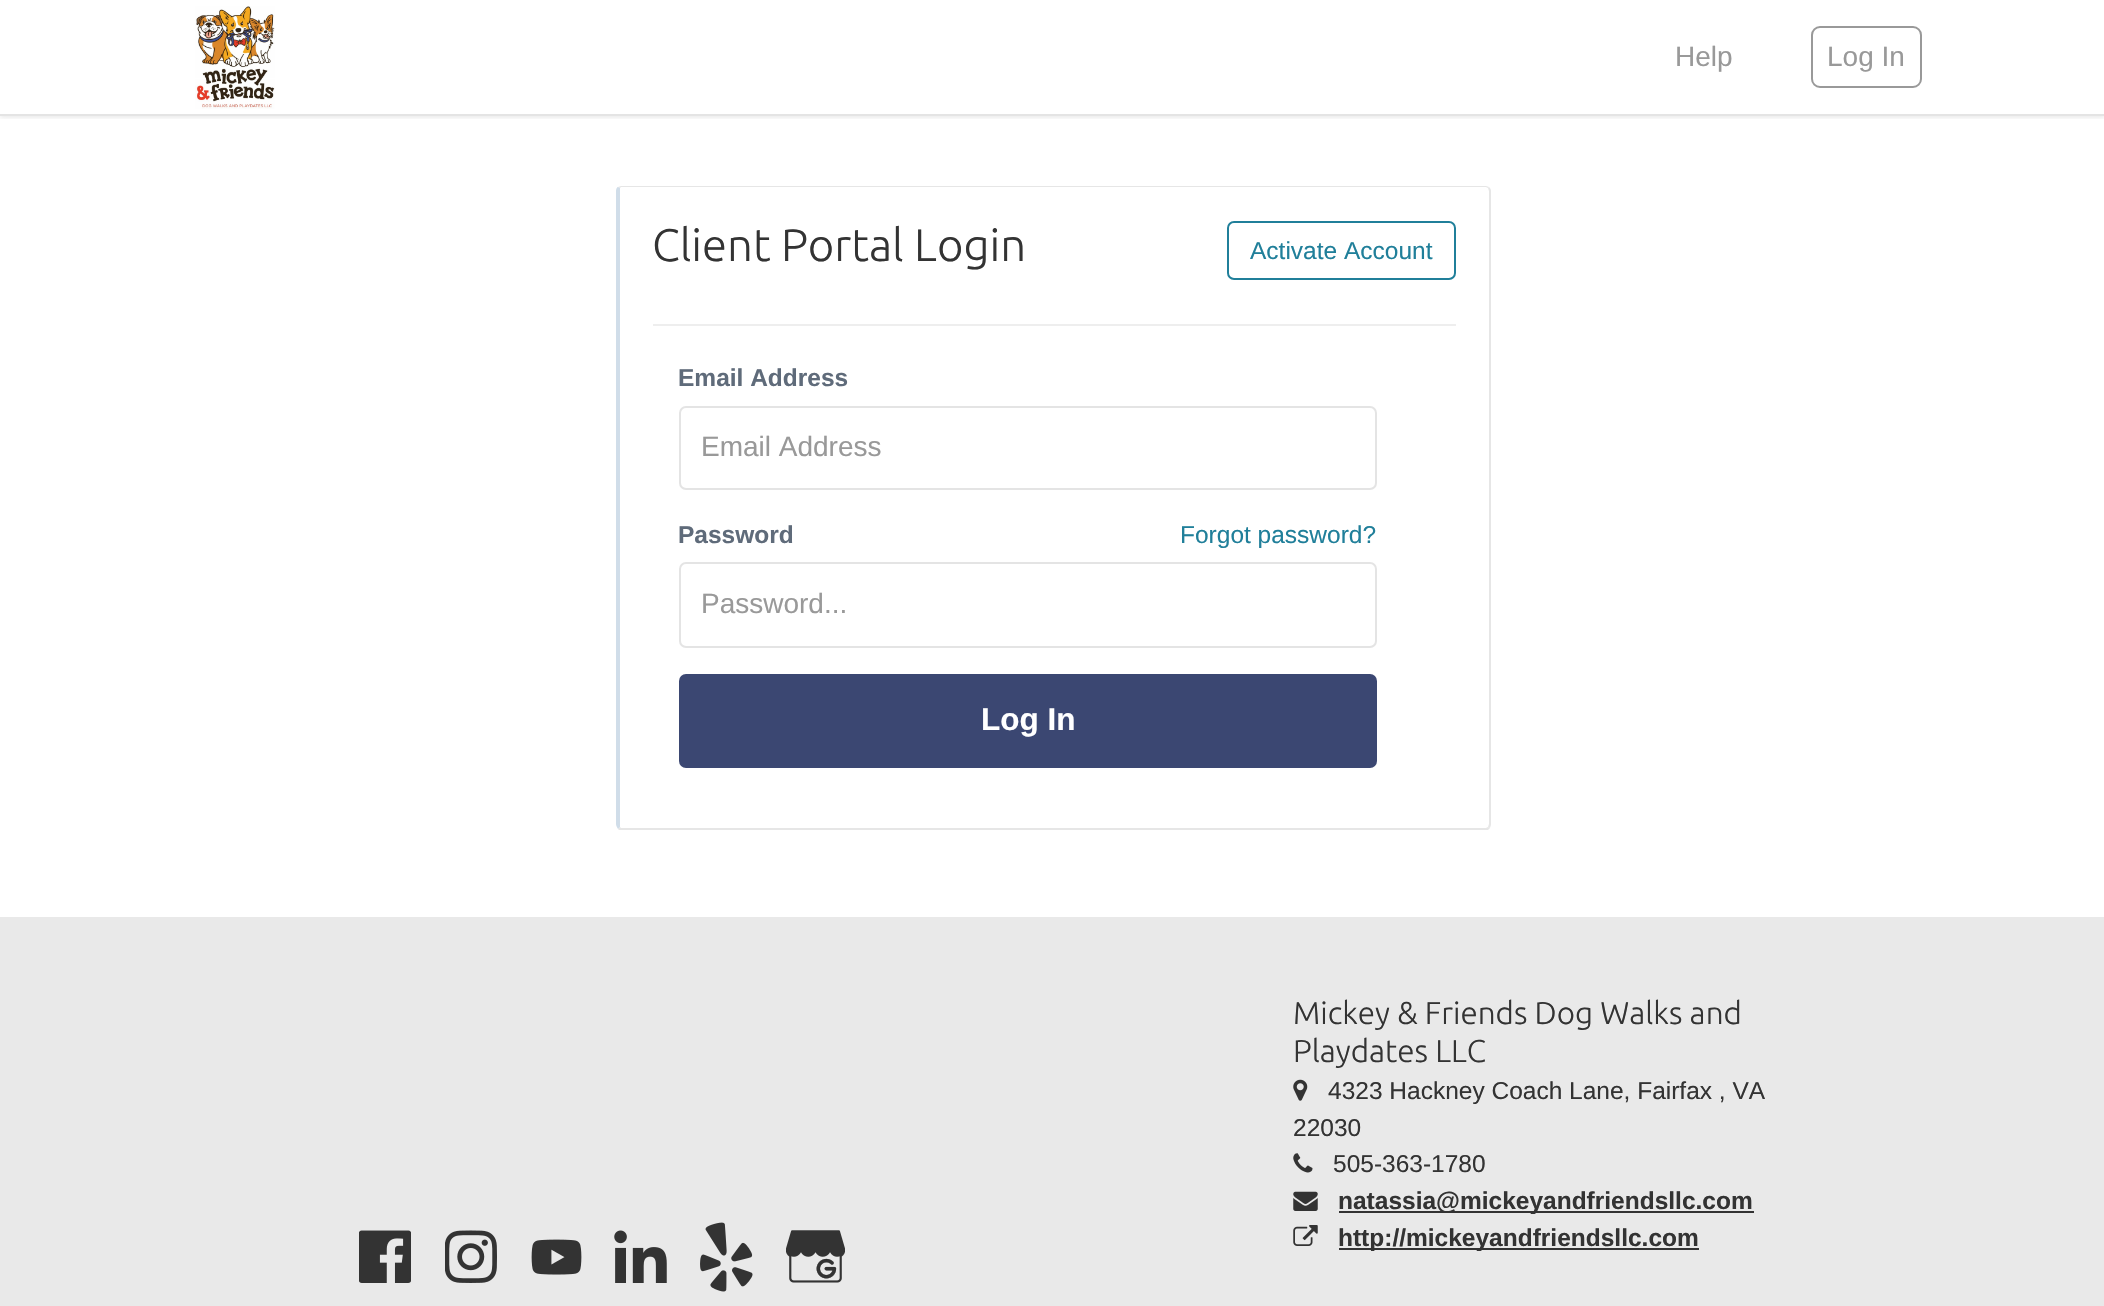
void draw(SkCanvas* canvas) {
    SkPaint paint;
    paint.setAntiAlias(true);
    auto face = [&](const char* family, int weight, float size, bool italic = false) {
        SkFontStyle style(weight, SkFontStyle::kNormal_Width,
            italic ? SkFontStyle::kItalic_Slant : SkFontStyle::kUpright_Slant);
        SkFont result(fontMgr->matchFamilyStyle(family, style), size);
        result.setSubpixel(true);
        return result;
    };
    auto write = [&](const char* s, float x, float y, const SkFont& font, SkColor color) {
        SkPaint ink(SkColor4f::FromColor(color));
        ink.setAntiAlias(true);
        canvas->drawString(s, x, y, font, ink);
    };
    auto block = [&](float x, float y, float w, float h, SkColor color) {
        SkPaint ink(SkColor4f::FromColor(color));
        ink.setAntiAlias(true);
        canvas->drawRect(SkRect::MakeXYWH(x, y, w, h), ink);
    };
    auto card = [&](float x, float y, float w, float h, float radius, SkColor color) {
        SkPaint ink(SkColor4f::FromColor(color));
        ink.setAntiAlias(true);
        canvas->drawRoundRect(SkRect::MakeXYWH(x, y, w, h), radius, radius, ink);
    };
    auto paste = [&](const char* path, float x, float y, float w, float h) {
        auto image = SkImages::DeferredFromEncodedData(SkData::MakeFromFileName(path));
        canvas->drawImageRect(image, SkRect::MakeXYWH(x, y, w, h), SkSamplingOptions());
    };
    canvas->clear(SK_ColorWHITE);
    canvas->save();
    canvas->clipRect(SkRect::MakeXYWH(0, 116, 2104, 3));
    paint.setColor(SkColorSetARGB(26, 0, 0, 0));
    paint.setMaskFilter(SkMaskFilter::MakeBlur(kNormal_SkBlurStyle, 2.5f));
    canvas->drawRect(SkRect::MakeXYWH(0, 2, 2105, 115), paint);
    paint.setMaskFilter(nullptr);
    canvas->restore();
    block(0, 114, 2104, 2, SkColorSetRGB(228, 228, 228));
    paste("pic1.png", 195, 6, 80, 103);
    auto kFont1 = face("Liberation Sans", 400, 28);
    write("Help", 1675, 66, kFont1, SkColorSetRGB(153, 153, 153));
    paint.setStyle(SkPaint::kStroke_Style);
    paint.setStrokeWidth(2);
    paint.setColor(SkColorSetRGB(153, 153, 153));
    canvas->drawRoundRect(SkRect::MakeXYWH(1812, 27, 109, 60), 8, 8, paint);
    write("Log In", 1827, 66, kFont1, SkColorSetRGB(153, 153, 153));
    paint.setStyle(SkPaint::kFill_Style);
    paint.setColor(SkColorSetRGB(230, 230, 230));
    canvas->drawPath(SkPathBuilder().moveTo(621, 186).lineTo(618, 187).lineTo(620, 188).lineTo(621, 187).lineTo(1486, 187).lineTo(1488, 188).lineTo(1489, 187).lineTo(1486, 186).close().detach(), paint);
    canvas->drawPath(SkPathBuilder().moveTo(1491, 824).lineTo(1491, 191).cubicTo(1491, 189, 1490, 188, 1489, 187).lineTo(1488, 188).lineTo(1489, 191).lineTo(1489, 824).lineTo(1488, 827).lineTo(1490, 828).cubicTo(1490, 827, 1491, 826, 1491, 824).close().detach(), paint);
    canvas->drawPath(SkPathBuilder().moveTo(619, 830).lineTo(618, 829).lineTo(620, 827).lineTo(621, 828).lineTo(1486, 828).lineTo(1488, 827).lineTo(1490, 828).lineTo(1488, 830).close().detach(), paint);
    paint.setColor(SkColorSetRGB(208, 221, 233));
    canvas->drawPath(SkPathBuilder().moveTo(616, 191).lineTo(616, 824).cubicTo(616, 826, 617, 827, 618, 829).lineTo(620, 827).lineTo(620, 188).lineTo(618, 187).cubicTo(617, 187, 616, 189, 616, 191).close().detach(), paint);
    auto kFont2 = face("Ubuntu", 300, 45.5f);
    write("Client Portal Login", 652, 261, kFont2, SkColorSetRGB(51, 51, 51));
    paint.setStyle(SkPaint::kStroke_Style);
    paint.setColor(SkColorSetRGB(32, 127, 154));
    canvas->drawRoundRect(SkRect::MakeXYWH(1228, 222, 227, 57), 6, 6, paint);
    auto kFont3 = face("Liberation Sans", 400, 24.5f);
    write("Activate Account", 1250, 259, kFont3, SkColorSetRGB(32, 127, 154));
    block(653, 324, 803, 2, SkColorSetRGB(238, 238, 238));
    auto kFont4 = face("Liberation Sans", 700, 24.5f);
    write("Email Address", 678, 386, kFont4, SkColorSetRGB(95, 107, 122));
    paint.setColor(SkColorSetRGB(228, 228, 228));
    canvas->drawRoundRect(SkRect::MakeXYWH(680, 407, 696, 82), 6, 6, paint);
    write("Email Address", 701, 456, kFont1, SkColorSetRGB(153, 153, 153));
    write("Password", 678, 543, kFont4, SkColorSetRGB(95, 107, 122));
    write("Forgot password?", 1180, 543, kFont3, SkColorSetRGB(32, 127, 154));
    canvas->drawRoundRect(SkRect::MakeXYWH(680, 563, 696, 84), 6, 6, paint);
    write("Password...", 701, 613, kFont1, SkColorSetRGB(153, 153, 153));
    card(679, 674, 698, 94, 7, SkColorSetRGB(59, 71, 114));
    auto kFont5 = face("Liberation Sans", 700, 31.5f);
    write("Log In", 981, 730, kFont5, SK_ColorWHITE);
    block(0, 917, 2104, 389, SkColorSetRGB(233, 233, 233));
    paste("pic2.png", 359, 1230, 52, 53);
    paste("pic3.png", 445, 1230, 52, 53);
    paste("pic4.png", 531, 1239, 51, 36);
    paste("pic5.png", 614, 1230, 53, 53);
    paste("pic6.png", 700, 1222, 53, 70);
    paste("pic7.png", 786, 1230, 59, 53);
    auto kFont6 = face("Ubuntu", 300, 31.5f);
    write("Mickey & Friends Dog Walks and", 1293, 1024, kFont6, SkColorSetRGB(51, 51, 51));
    write("Playdates LLC", 1293, 1062, kFont6, SkColorSetRGB(51, 51, 51));
    paste("pic8.png", 1293, 1079, 15, 22);
    write("4323 Hackney Coach Lane, Fairfax , VA", 1328, 1099, kFont3, SkColorSetRGB(51, 51, 51));
    write("22030", 1293, 1136, kFont3, SkColorSetRGB(51, 51, 51));
    paste("pic9.png", 1293, 1153, 20, 20);
    write("505-363-1780", 1333, 1172, kFont3, SkColorSetRGB(51, 51, 51));
    paste("pic10.png", 1293, 1191, 25, 20);
    block(1339, 1211, 415, 2, SkColorSetRGB(51, 51, 51));
    write("natassia@mickeyandfriendsllc.com", 1338, 1209, kFont4, SkColorSetRGB(51, 51, 51));
    paste("pic11.png", 1293, 1225, 25, 21);
    block(1339, 1248, 360, 2, SkColorSetRGB(51, 51, 51));
    write("http://mickeyandfriendsllc.com", 1338, 1246, kFont4, SkColorSetRGB(51, 51, 51));
}
